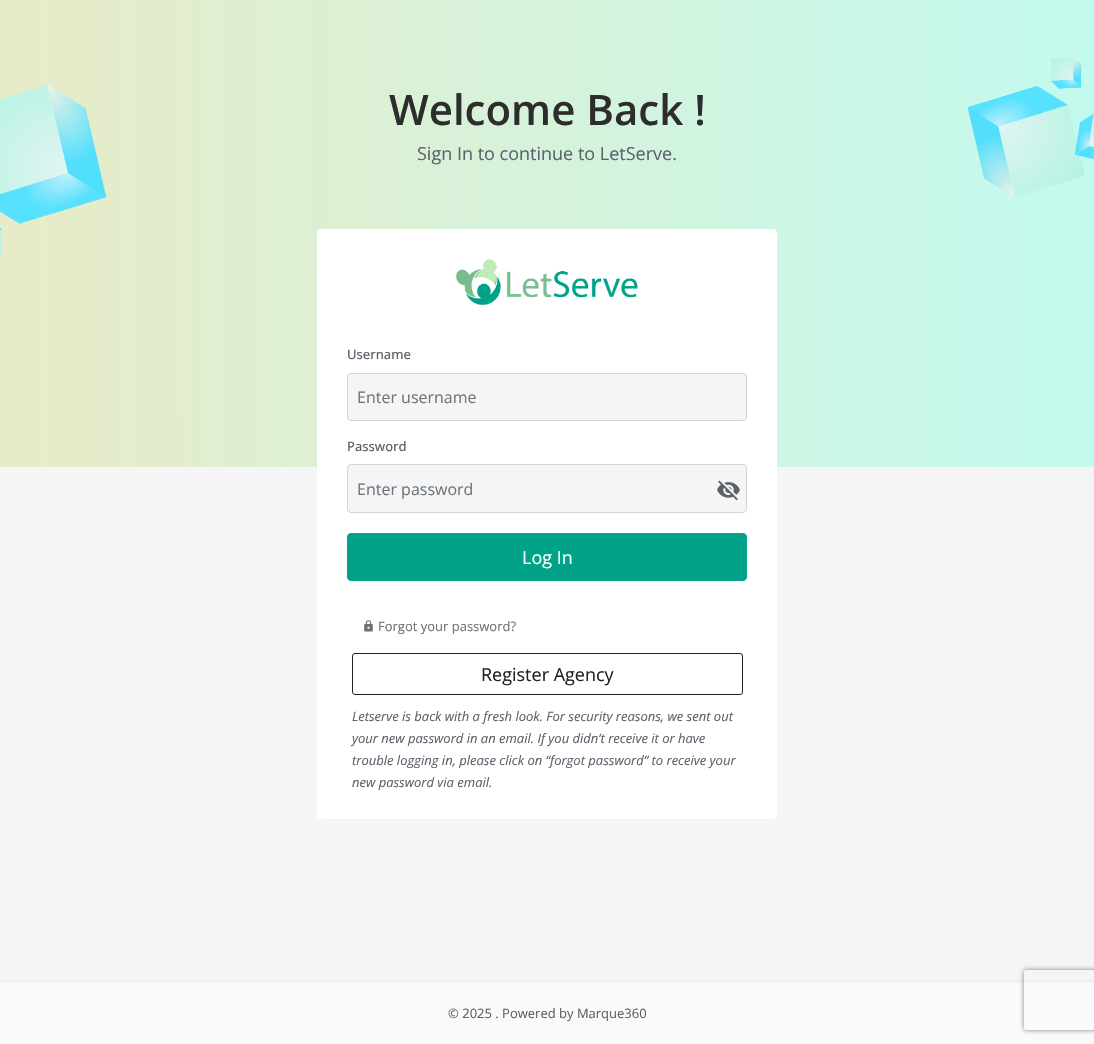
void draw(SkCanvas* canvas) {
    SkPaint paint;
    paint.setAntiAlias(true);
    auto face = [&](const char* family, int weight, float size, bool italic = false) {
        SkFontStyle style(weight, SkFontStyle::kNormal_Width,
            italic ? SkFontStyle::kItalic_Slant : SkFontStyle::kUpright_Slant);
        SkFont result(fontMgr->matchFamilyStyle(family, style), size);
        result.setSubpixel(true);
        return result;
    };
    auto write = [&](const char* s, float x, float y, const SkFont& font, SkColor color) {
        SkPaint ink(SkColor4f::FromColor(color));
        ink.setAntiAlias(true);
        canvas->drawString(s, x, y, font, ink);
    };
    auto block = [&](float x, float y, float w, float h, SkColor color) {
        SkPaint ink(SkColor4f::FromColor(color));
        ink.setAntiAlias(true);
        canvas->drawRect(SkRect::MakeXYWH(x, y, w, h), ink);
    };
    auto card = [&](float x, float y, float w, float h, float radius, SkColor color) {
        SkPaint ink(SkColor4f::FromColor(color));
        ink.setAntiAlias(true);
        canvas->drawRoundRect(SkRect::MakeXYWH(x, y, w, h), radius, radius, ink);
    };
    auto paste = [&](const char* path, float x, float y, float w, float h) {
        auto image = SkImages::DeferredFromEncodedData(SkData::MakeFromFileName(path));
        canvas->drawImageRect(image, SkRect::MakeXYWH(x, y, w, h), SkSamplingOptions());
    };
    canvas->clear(SkColorSetRGB(245, 245, 245));
    {
        const SkColor colors[] = {SkColorSetRGB(232, 235, 199), SkColorSetRGB(195, 250, 239)};
        const float stops[] = {0, 1};
        const SkPoint ends[] = {{0, 234}, {1094, 233}};
        paint.setShader(SkGradientShader::MakeLinear(ends, colors, stops, 2, SkTileMode::kClamp));
        paint.setAlpha(255);
    }
    canvas->drawRect(SkRect::MakeXYWH(0, 0, 1094, 467), paint);
    paste("pic1.png", 0, 84, 107, 174);
    auto kFont1 = face("Open Sans", 600, 42);
    write("Welcome Back !", 389, 125, kFont1, SkColorSetRGB(45, 45, 45));
    auto kFont2 = face("Open Sans", 400, 18);
    write("Sign In to continue to LetServe.", 417, 160, kFont2, SkColorSetRGB(91, 98, 107));
    paste("pic2.png", 967, 57, 127, 141);
    card(317, 229, 460, 590, 4, SK_ColorWHITE);
    paste("pic3.png", 456, 259, 182, 46);
    auto kFont3 = face("Open Sans", 500, 13);
    write("Username", 347, 359, kFont3, SkColorSetRGB(91, 98, 107));
    paint.setShader(nullptr);
    paint.setColor(SkColorSetRGB(245, 245, 245));
    canvas->drawRoundRect(SkRect::MakeXYWH(347.5f, 373.5f, 399, 47), 3.5f, 3.5f, paint);
    paint.setStyle(SkPaint::kStroke_Style);
    paint.setStrokeWidth(1);
    paint.setColor(SkColorSetRGB(212, 212, 212));
    canvas->drawRoundRect(SkRect::MakeXYWH(347.5f, 373.5f, 399, 47), 3.5f, 3.5f, paint);
    auto kFont4 = face("Open Sans", 400, 16);
    write("Enter username", 357, 403, kFont4, SkColorSetRGB(108, 117, 125));
    write("Password", 347, 451, kFont3, SkColorSetRGB(91, 98, 107));
    paint.setStyle(SkPaint::kFill_Style);
    paint.setColor(SkColorSetRGB(245, 245, 245));
    canvas->drawRoundRect(SkRect::MakeXYWH(347.5f, 464.5f, 399, 48), 3.5f, 3.5f, paint);
    paint.setStyle(SkPaint::kStroke_Style);
    paint.setColor(SkColorSetRGB(212, 212, 212));
    canvas->drawRoundRect(SkRect::MakeXYWH(347.5f, 464.5f, 399, 48), 3.5f, 3.5f, paint);
    write("Enter password", 357, 495, kFont4, SkColorSetRGB(108, 117, 125));
    paste("pic4.png", 717, 480, 23, 21);
    paint.setStyle(SkPaint::kFill_Style);
    paint.setColor(SkColorSetRGB(0, 163, 136));
    canvas->drawRoundRect(SkRect::MakeXYWH(347.5f, 533.5f, 399, 47), 3.5f, 3.5f, paint);
    paint.setStyle(SkPaint::kStroke_Style);
    canvas->drawRoundRect(SkRect::MakeXYWH(347.5f, 533.5f, 399, 47), 3.5f, 3.5f, paint);
    write("Log In", 522, 564, kFont2, SK_ColorWHITE);
    paste("pic5.png", 364, 620, 9, 12);
    auto kFont5 = face("Open Sans", 400, 13);
    write("Forgot your password?", 378, 631, kFont5, SkColorSetRGB(112, 112, 112));
    paint.setColor(SkColorSetRGB(34, 34, 34));
    canvas->drawRoundRect(SkRect::MakeXYWH(352.5f, 653.5f, 390, 41), 2.5f, 2.5f, paint);
    write("Register Agency", 481, 681, kFont2, SkColorSetRGB(34, 34, 34));
    auto kFont6 = face("Open Sans", 400, 13, true);
    write("Letserve is back with a fresh look. For security reasons, we sent out", 352, 721, kFont6, SkColorSetRGB(91, 98, 107));
    write("your new password in an email. If you didn’t receive it or have", 352, 743, kFont6, SkColorSetRGB(91, 98, 107));
    write("trouble logging in, please click on “forgot password” to receive your", 352, 765, kFont6, SkColorSetRGB(91, 98, 107));
    write("new password via email.", 352, 787, kFont6, SkColorSetRGB(91, 98, 107));
    paint.setStyle(SkPaint::kFill_Style);
    paint.setColor(SkColorSetARGB(13, 0, 0, 0));
    paint.setMaskFilter(SkMaskFilter::MakeBlur(kNormal_SkBlurStyle, 1));
    canvas->drawRect(SkRect::MakeXYWH(0, 981, 1094, 62), paint);
    paint.setMaskFilter(nullptr);
    block(0, 982, 1094, 62, SkColorSetRGB(250, 250, 250));
    write("© 2025 . Powered by Marque360", 448, 1018, kFont5, SkColorSetRGB(91, 98, 107));
    canvas->save();
    canvas->clipPath(SkPathBuilder(SkPathFillType::kEvenOdd).moveTo(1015, 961).lineTo(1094, 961).lineTo(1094, 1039).lineTo(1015, 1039).close().moveTo(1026, 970).lineTo(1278, 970).cubicTo(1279, 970, 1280, 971, 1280, 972).lineTo(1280, 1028).cubicTo(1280, 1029, 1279, 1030, 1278, 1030).lineTo(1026, 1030).cubicTo(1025, 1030, 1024, 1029, 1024, 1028).lineTo(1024, 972).cubicTo(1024, 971, 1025, 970, 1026, 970).close().detach(), true);
    paint.setColor(SkColorSetRGB(128, 128, 128));
    paint.setMaskFilter(SkMaskFilter::MakeBlur(kNormal_SkBlurStyle, 2.5f));
    canvas->drawRoundRect(SkRect::MakeXYWH(1024, 970, 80, 60), 2, 2, paint);
    paint.setMaskFilter(nullptr);
    canvas->restore();
}
